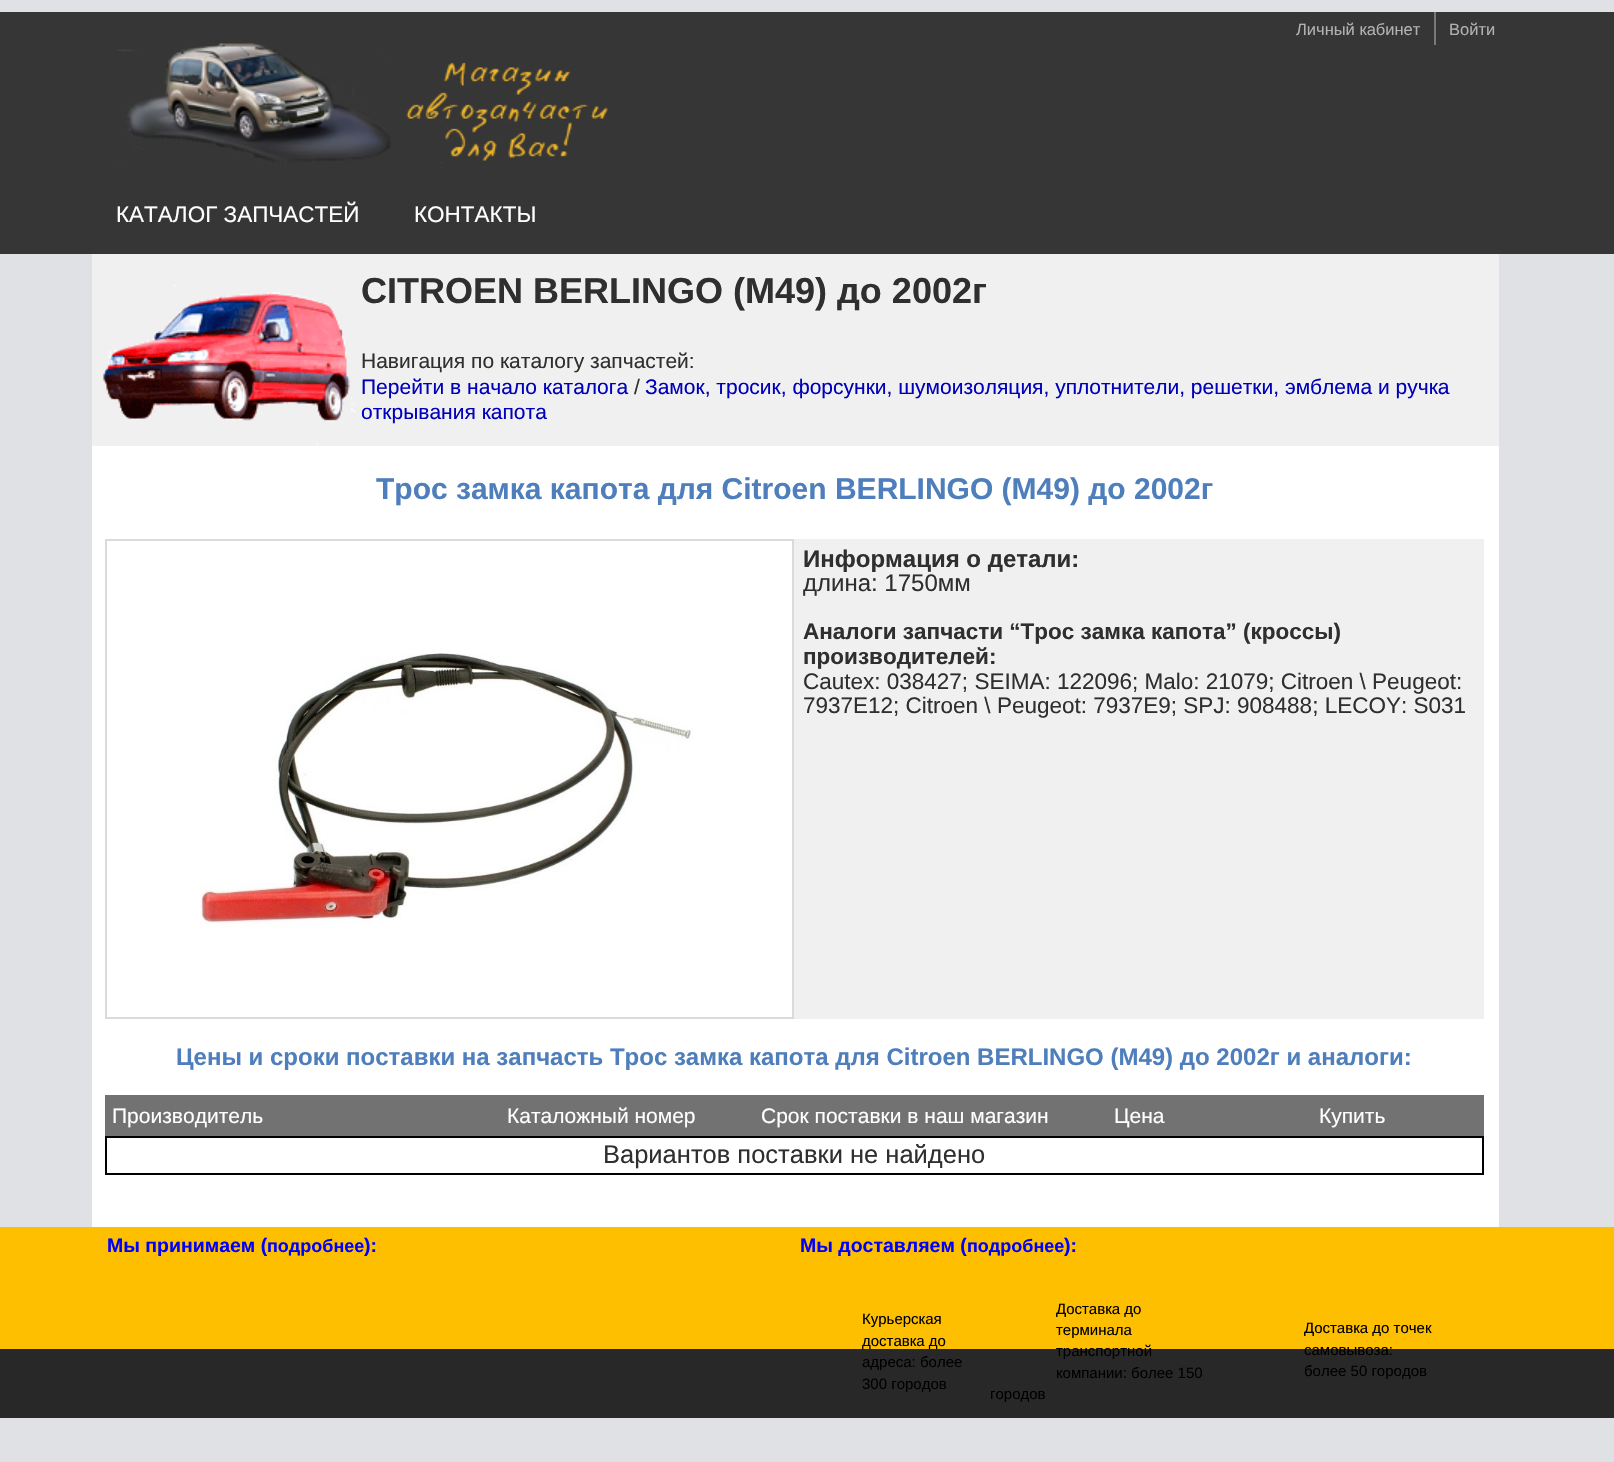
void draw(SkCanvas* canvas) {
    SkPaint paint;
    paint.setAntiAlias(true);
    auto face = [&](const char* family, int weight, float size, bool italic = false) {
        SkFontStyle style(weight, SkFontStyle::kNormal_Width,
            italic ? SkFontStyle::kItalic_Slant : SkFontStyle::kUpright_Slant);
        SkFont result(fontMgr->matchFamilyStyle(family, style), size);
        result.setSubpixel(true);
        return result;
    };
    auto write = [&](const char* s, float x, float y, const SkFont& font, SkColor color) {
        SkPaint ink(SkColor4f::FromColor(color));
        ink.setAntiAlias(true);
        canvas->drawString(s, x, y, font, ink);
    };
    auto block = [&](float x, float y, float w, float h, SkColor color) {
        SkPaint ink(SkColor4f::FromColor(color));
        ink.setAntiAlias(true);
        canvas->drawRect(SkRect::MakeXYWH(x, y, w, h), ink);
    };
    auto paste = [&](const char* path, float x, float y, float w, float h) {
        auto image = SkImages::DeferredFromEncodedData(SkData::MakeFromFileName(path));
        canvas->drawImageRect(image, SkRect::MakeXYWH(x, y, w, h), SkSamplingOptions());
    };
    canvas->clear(SkColorSetRGB(224, 225, 229));
    block(0, 12, 1614, 242, SkColorSetRGB(54, 54, 54));
    block(1434, 12, 2, 33, SkColorSetRGB(121, 121, 121));
    auto kFont1 = face("Liberation Sans", 400, 16.5f);
    write("Личный кабинет", 1296, 35, kFont1, SkColorSetRGB(177, 177, 177));
    write("Войти", 1449, 35, kFont1, SkColorSetRGB(177, 177, 177));
    paste("pic1.png", 117, 43, 491, 121);
    auto kFont2 = face("Liberation Sans", 400, 22.5f);
    write("КАТАЛОГ ЗАПЧАСТЕЙ", 116, 222, kFont2, SK_ColorWHITE);
    write("КОНТАКТЫ", 414, 222, kFont2, SK_ColorWHITE);
    block(92, 446, 1407, 781, SK_ColorWHITE);
    block(92, 254, 1407, 192, SkColorSetRGB(240, 240, 240));
    paste("pic2.png", 103, 285, 253, 161);
    auto kFont3 = face("Liberation Sans", 700, 36);
    write("CITROEN BERLINGO (M49) до 2002г", 361, 303, kFont3, SkColorSetRGB(47, 47, 47));
    auto kFont4 = face("Liberation Sans", 400, 21);
    write("Навигация по каталогу запчастей:", 361, 368, kFont4, SkColorSetRGB(47, 47, 47));
    write("Перейти в начало каталога", 361, 394, kFont4, SkColorSetRGB(0, 0, 187));
    write("/", 634, 394, kFont4, SkColorSetRGB(47, 47, 47));
    write("Замок, тросик, форсунки, шумоизоляция, уплотнители, решетки, эмблема и ручка", 645, 394, kFont4, SkColorSetRGB(0, 0, 187));
    write("открывания капота", 361, 419, kFont4, SkColorSetRGB(0, 0, 187));
    auto kFont5 = face("Liberation Sans", 700, 30);
    write("Трос замка капота для Citroen BERLINGO (M49) до 2002г", 376, 499, kFont5, SkColorSetRGB(78, 126, 187));
    paint.setStyle(SkPaint::kStroke_Style);
    paint.setStrokeWidth(2);
    paint.setColor(SkColorSetRGB(218, 218, 218));
    canvas->drawRect(SkRect::MakeXYWH(106, 540, 687, 478), paint);
    paste("pic3.png", 200, 653, 494, 276);
    block(794, 539, 690, 480, SkColorSetRGB(240, 240, 240));
    auto kFont6 = face("Liberation Sans", 700, 24);
    write("Информация о детали:", 803, 567, kFont6, SkColorSetRGB(47, 47, 47));
    auto kFont7 = face("Liberation Sans", 400, 24);
    write("длина: 1750мм", 803, 591, kFont7, SkColorSetRGB(47, 47, 47));
    auto kFont8 = face("Liberation Sans", 700, 22.5f);
    write("Аналоги запчасти “Трос замка капота” (кроссы)", 803, 639, kFont8, SkColorSetRGB(47, 47, 47));
    write("производителей:", 803, 664, kFont8, SkColorSetRGB(47, 47, 47));
    write("Cautex: 038427; SEIMA: 122096; Malo: 21079; Citroen \\ Peugeot:", 803, 689, kFont2, SkColorSetRGB(47, 47, 47));
    write("7937E12; Citroen \\ Peugeot: 7937E9; SPJ: 908488; LECOY: S031", 803, 713, kFont2, SkColorSetRGB(47, 47, 47));
    write("Цены и сроки поставки на запчасть Трос замка капота для Citroen BERLINGO (M49) до 2002г и аналоги:", 176, 1065, kFont6, SkColorSetRGB(78, 126, 187));
    block(105, 1095, 1379, 41, SkColorSetRGB(114, 114, 114));
    block(105, 1136, 1379, 2, SK_ColorBLACK);
    write("Производитель", 112, 1123, kFont4, SK_ColorWHITE);
    write("Каталожный номер", 507, 1123, kFont4, SK_ColorWHITE);
    write("Срок поставки в наш магазин", 761, 1123, kFont4, SK_ColorWHITE);
    write("Цена", 1114, 1123, kFont4, SK_ColorWHITE);
    write("Купить", 1319, 1123, kFont4, SK_ColorWHITE);
    block(1482, 1137, 2, 38, SK_ColorBLACK);
    block(105, 1173, 1379, 2, SK_ColorBLACK);
    block(105, 1137, 2, 38, SK_ColorBLACK);
    auto kFont9 = face("Liberation Sans", 400, 25.5f);
    write("Вариантов поставки не найдено", 603, 1163, kFont9, SkColorSetRGB(47, 47, 47));
    block(0, 1227, 1614, 122, SkColorSetRGB(254, 191, 0));
    auto kFont10 = face("Liberation Sans", 700, 19.5f);
    write("Мы принимаем (", 107, 1252, kFont10, SkColorSetRGB(0, 0, 255));
    auto kFont11 = face("Liberation Sans", 700, 18);
    write("подробнее", 267, 1252, kFont11, SkColorSetRGB(0, 0, 255));
    write("):", 364, 1252, kFont10, SkColorSetRGB(0, 0, 255));
    write("Мы доставляем (", 800, 1252, kFont10, SkColorSetRGB(0, 0, 255));
    write("подробнее", 967, 1252, kFont11, SkColorSetRGB(0, 0, 255));
    write("):", 1064, 1252, kFont10, SkColorSetRGB(0, 0, 255));
    auto kFont12 = face("Liberation Sans", 400, 15);
    write("Курьерская", 862, 1324, kFont12, SK_ColorBLACK);
    write("доставка до", 862, 1346, kFont12, SK_ColorBLACK);
    block(0, 1349, 1614, 69, SkColorSetRGB(40, 40, 40));
    write("адреса: более", 862, 1367, kFont12, SK_ColorBLACK);
    write("300 городов", 862, 1389, kFont12, SK_ColorBLACK);
    write("Доставка до", 1056, 1314, kFont12, SK_ColorBLACK);
    write("терминала", 1056, 1335, kFont12, SK_ColorBLACK);
    write("транспортной", 1056, 1356, kFont12, SK_ColorBLACK);
    write("компании: более 150", 1056, 1378, kFont12, SK_ColorBLACK);
    write("городов", 990, 1399, kFont12, SK_ColorBLACK);
    write("Доставка до точек", 1304, 1333, kFont12, SK_ColorBLACK);
    write("самовывоза:", 1304, 1355, kFont12, SK_ColorBLACK);
    write("более 50 городов", 1304, 1376, kFont12, SK_ColorBLACK);
}
